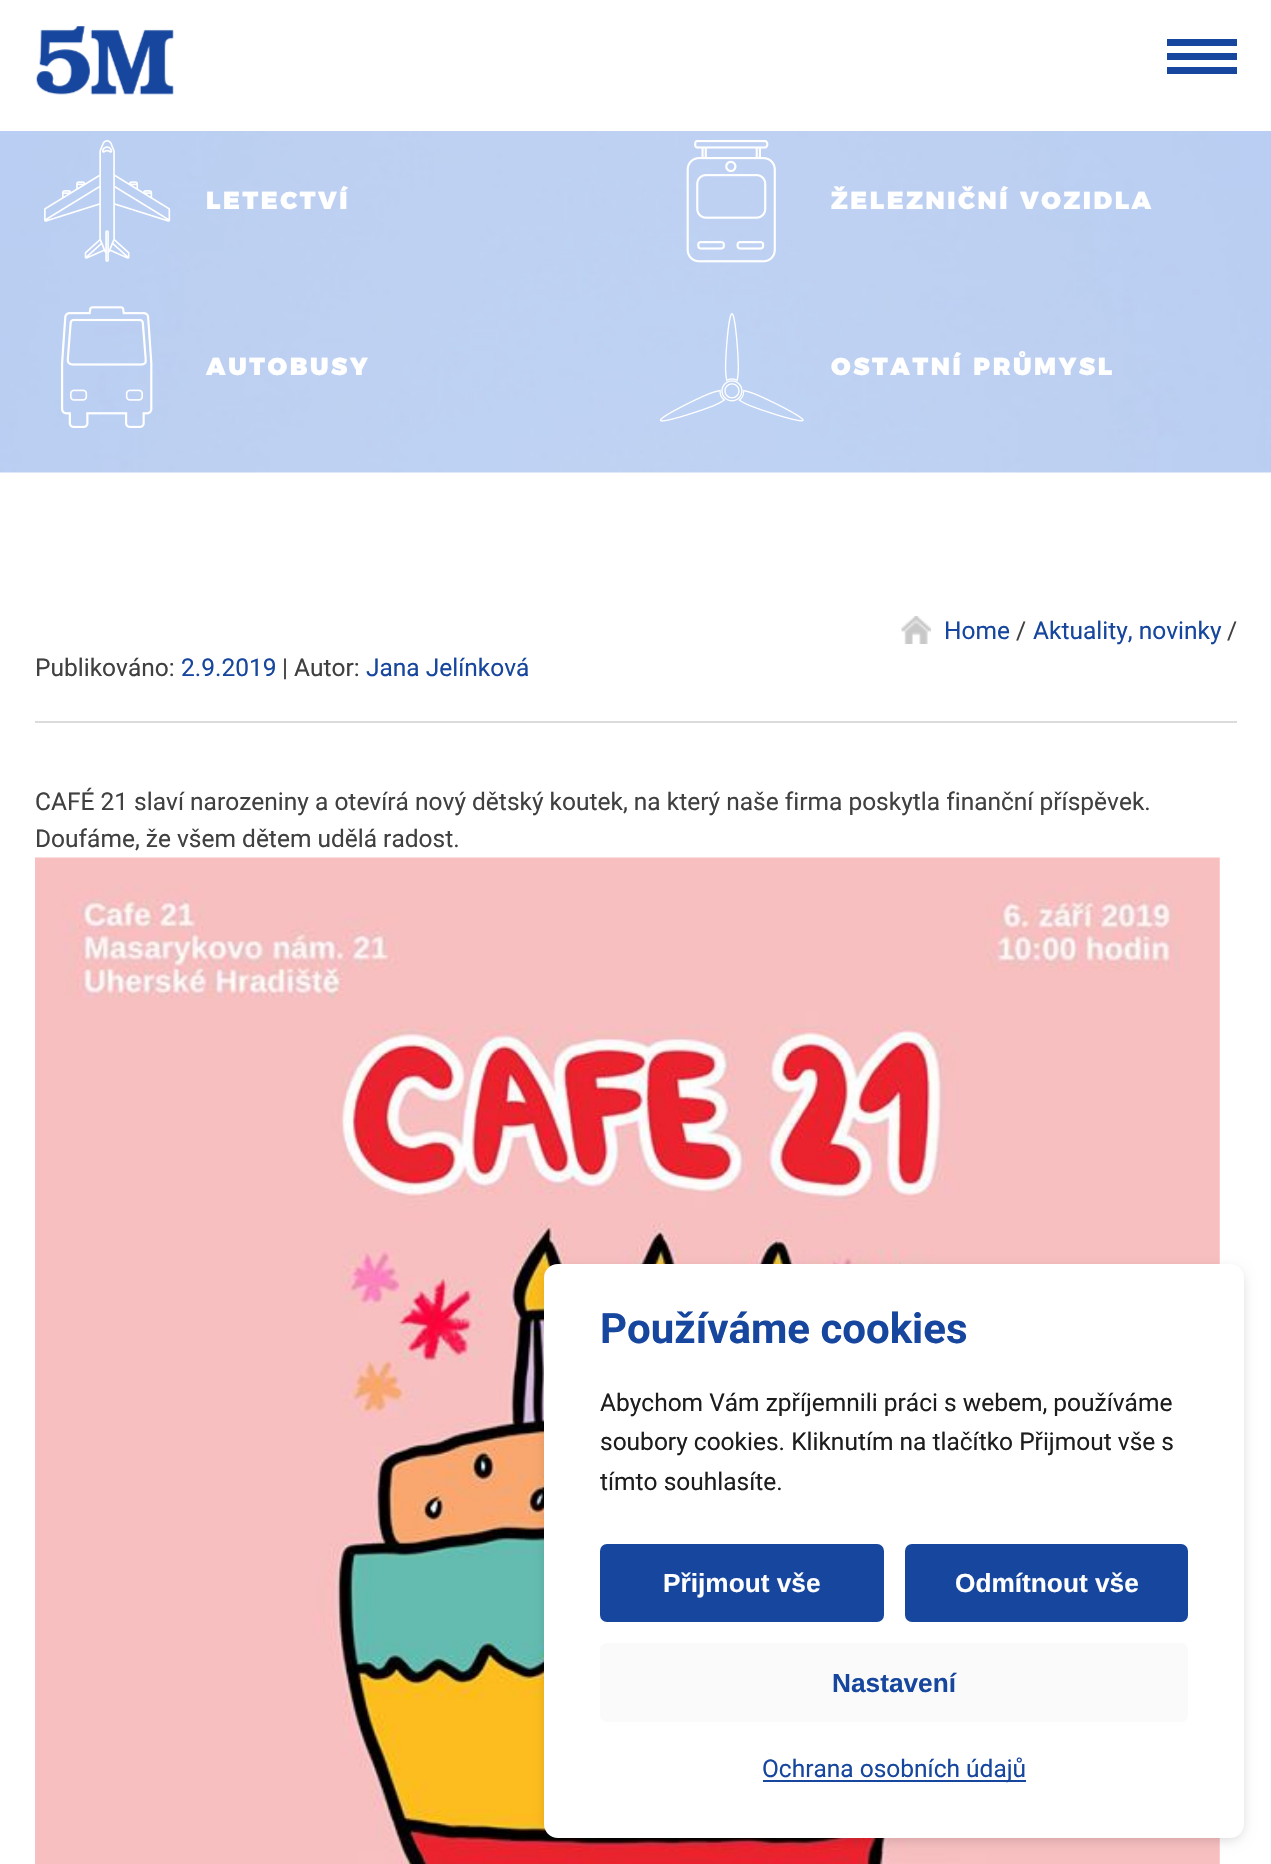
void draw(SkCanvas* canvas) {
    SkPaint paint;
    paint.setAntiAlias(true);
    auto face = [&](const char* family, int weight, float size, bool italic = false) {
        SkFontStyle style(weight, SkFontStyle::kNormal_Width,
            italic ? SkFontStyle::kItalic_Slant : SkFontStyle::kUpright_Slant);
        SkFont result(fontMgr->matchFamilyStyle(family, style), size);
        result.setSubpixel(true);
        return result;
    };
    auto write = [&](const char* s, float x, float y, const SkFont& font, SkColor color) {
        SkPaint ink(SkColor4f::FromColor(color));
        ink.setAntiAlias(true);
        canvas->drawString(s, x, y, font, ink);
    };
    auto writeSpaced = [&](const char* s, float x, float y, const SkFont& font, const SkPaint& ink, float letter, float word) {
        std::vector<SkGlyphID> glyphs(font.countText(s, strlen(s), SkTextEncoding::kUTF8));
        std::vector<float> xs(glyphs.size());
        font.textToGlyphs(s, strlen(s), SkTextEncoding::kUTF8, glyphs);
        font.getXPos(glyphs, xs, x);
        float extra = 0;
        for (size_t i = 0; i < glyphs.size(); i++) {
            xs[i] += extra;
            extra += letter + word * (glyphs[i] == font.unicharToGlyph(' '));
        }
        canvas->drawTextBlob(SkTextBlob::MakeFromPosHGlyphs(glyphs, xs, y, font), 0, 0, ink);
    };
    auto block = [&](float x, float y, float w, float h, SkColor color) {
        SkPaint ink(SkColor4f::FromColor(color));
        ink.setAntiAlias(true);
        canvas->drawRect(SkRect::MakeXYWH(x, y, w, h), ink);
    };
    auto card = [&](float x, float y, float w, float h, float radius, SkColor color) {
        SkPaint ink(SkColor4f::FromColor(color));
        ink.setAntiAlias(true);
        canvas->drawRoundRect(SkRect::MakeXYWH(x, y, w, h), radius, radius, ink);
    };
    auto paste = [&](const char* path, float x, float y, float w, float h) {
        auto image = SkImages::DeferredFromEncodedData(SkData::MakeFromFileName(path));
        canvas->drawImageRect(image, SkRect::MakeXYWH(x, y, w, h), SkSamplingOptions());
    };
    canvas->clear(SK_ColorWHITE);
    paste("pic1.png", 36, 26, 138, 69);
    block(1167, 53, 70, 7, SkColorSetRGB(22, 70, 157));
    block(1167, 39, 70, 7, SkColorSetRGB(22, 70, 157));
    block(1167, 67, 70, 7, SkColorSetRGB(22, 70, 157));
    paste("pic2.png", 0, 131, 1271, 342);
    paste("pic3.png", 44, 140, 127, 122);
    auto kFont1 = face("Montserrat", 900, 24.5f);
    paint.setColor(SK_ColorWHITE);
    writeSpaced("LETECTVÍ", 206, 209, kFont1, paint, 2.6f, 0);
    paste("pic4.png", 686, 140, 90, 123);
    writeSpaced("ŽELEZNIČNÍ VOZIDLA", 831, 209, kFont1, paint, 2.6f, 0);
    paste("pic5.png", 61, 306, 92, 122);
    writeSpaced("AUTOBUSY", 206, 375, kFont1, paint, 2.6f, 0);
    paste("pic6.png", 660, 313, 144, 109);
    writeSpaced("OSTATNÍ PRŮMYSL", 831, 375, kFont1, paint, 2.6f, 0);
    block(35, 721, 1202, 2, SkColorSetRGB(219, 219, 219));
    paste("pic7.png", 901, 616, 30, 28);
    auto kFont2 = face("Roboto", 400, 24.5f);
    write("Home", 944, 639, kFont2, SkColorSetRGB(22, 70, 157));
    write("/", 1016, 639, kFont2, SkColorSetRGB(64, 64, 64));
    write("Aktuality, novinky", 1033, 639, kFont2, SkColorSetRGB(22, 70, 157));
    write("/", 1227, 639, kFont2, SkColorSetRGB(64, 64, 64));
    write("Publikováno:", 35, 676, kFont2, SkColorSetRGB(64, 64, 64));
    write("2.9.2019", 181, 676, kFont2, SkColorSetRGB(22, 70, 157));
    write("| Autor:", 282, 676, kFont2, SkColorSetRGB(64, 64, 64));
    write("Jana Jelínková", 366, 676, kFont2, SkColorSetRGB(22, 70, 157));
    write("CAFÉ 21 slaví narozeniny a otevírá nový dětský koutek, na který naše firma poskytla finanční příspěvek.", 35, 810, kFont2, SkColorSetRGB(64, 64, 64));
    write("Doufáme, že všem dětem udělá radost.", 35, 847, kFont2, SkColorSetRGB(64, 64, 64));
    paste("pic8.png", 35, 857, 1185, 1007);
    paint.setColor(SkColorSetARGB(51, 0, 0, 0));
    paint.setMaskFilter(SkMaskFilter::MakeBlur(kNormal_SkBlurStyle, 7));
    canvas->drawRoundRect(SkRect::MakeXYWH(548, 1271, 693, 567), 11, 11, paint);
    paint.setMaskFilter(nullptr);
    card(544, 1264, 700, 574, 14, SK_ColorWHITE);
    auto kFont3 = face("Roboto", 700, 42);
    write("Používáme cookies", 600, 1343, kFont3, SkColorSetRGB(22, 70, 157));
    write("Abychom Vám zpříjemnili práci s webem, používáme", 600, 1411, kFont2, SkColorSetRGB(29, 29, 29));
    write("soubory cookies. Kliknutím na tlačítko Přijmout vše s", 600, 1450, kFont2, SkColorSetRGB(29, 29, 29));
    write("tímto souhlasíte.", 600, 1490, kFont2, SkColorSetRGB(29, 29, 29));
    card(600, 1544, 284, 78, 7, SkColorSetRGB(22, 70, 157));
    auto kFont4 = face("Liberation Sans", 700, 26.25f);
    write("Přijmout vše", 663, 1592, kFont4, SK_ColorWHITE);
    card(905, 1544, 283, 78, 7, SkColorSetRGB(22, 70, 157));
    write("Odmítnout vše", 955, 1592, kFont4, SK_ColorWHITE);
    card(600, 1643, 588, 79, 7, SkColorSetRGB(250, 250, 250));
    write("Nastavení", 832, 1692, kFont4, SkColorSetRGB(22, 70, 157));
    block(763, 1780, 263, 2, SkColorSetRGB(22, 70, 157));
    write("Ochrana osobních údajů", 762, 1777, kFont2, SkColorSetRGB(22, 70, 157));
}
